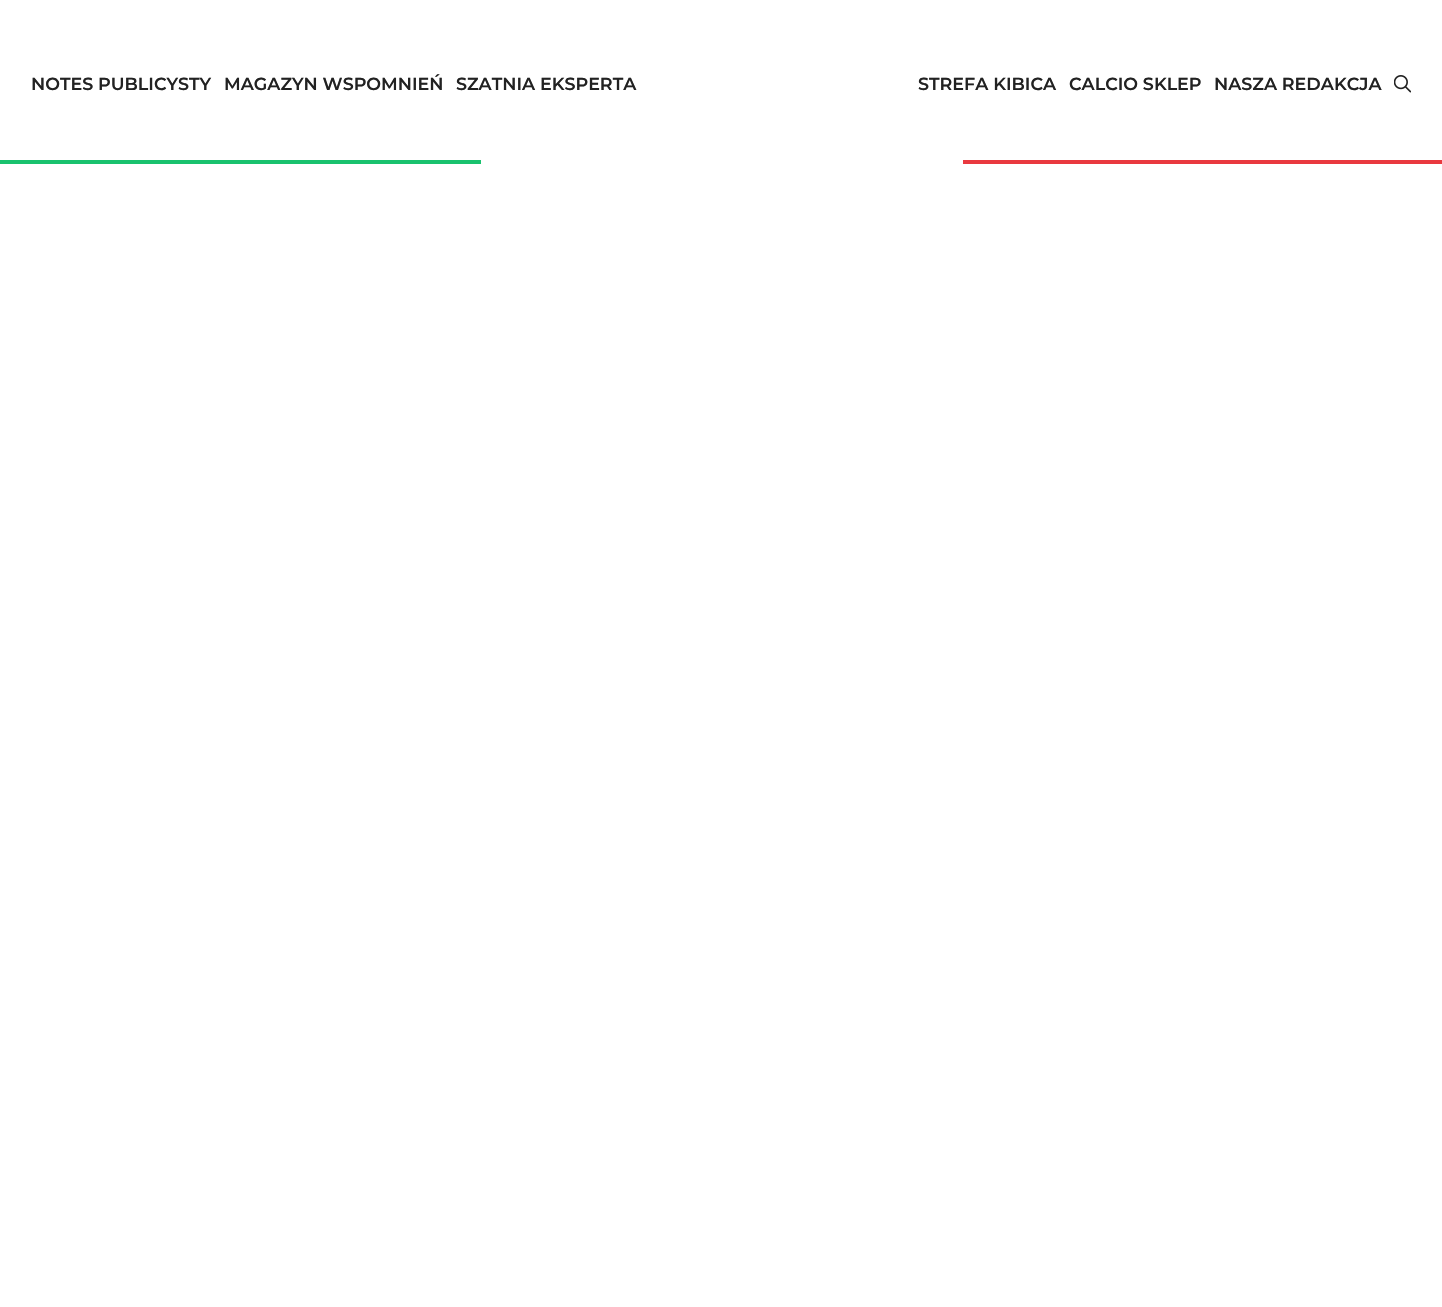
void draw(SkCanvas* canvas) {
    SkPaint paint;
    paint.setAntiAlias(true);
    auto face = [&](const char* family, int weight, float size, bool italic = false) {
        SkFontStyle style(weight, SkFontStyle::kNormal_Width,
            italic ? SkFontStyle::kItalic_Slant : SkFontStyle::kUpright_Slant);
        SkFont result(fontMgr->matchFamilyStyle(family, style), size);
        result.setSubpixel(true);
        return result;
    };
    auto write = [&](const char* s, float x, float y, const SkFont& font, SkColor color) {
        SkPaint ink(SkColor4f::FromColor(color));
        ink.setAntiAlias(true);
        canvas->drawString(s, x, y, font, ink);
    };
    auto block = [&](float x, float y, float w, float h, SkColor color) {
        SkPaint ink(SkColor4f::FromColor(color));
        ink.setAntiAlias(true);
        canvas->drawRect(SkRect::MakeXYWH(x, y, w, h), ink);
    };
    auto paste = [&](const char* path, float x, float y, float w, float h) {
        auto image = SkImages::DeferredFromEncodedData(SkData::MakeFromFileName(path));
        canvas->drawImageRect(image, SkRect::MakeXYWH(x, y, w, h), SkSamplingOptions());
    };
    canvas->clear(SK_ColorWHITE);
    block(963, 160, 479, 4, SkColorSetRGB(233, 57, 63));
    block(0, 160, 481, 4, SkColorSetRGB(25, 194, 110));
    auto kFont1 = face("Montserrat", 600, 17.5f);
    write("NOTES PUBLICYSTY", 31, 90, kFont1, SkColorSetRGB(34, 34, 34));
    write("MAGAZYN WSPOMNIEŃ", 224, 90, kFont1, SkColorSetRGB(34, 34, 34));
    write("SZATNIA EKSPERTA", 456, 90, kFont1, SkColorSetRGB(34, 34, 34));
    write("STREFA KIBICA", 918, 90, kFont1, SkColorSetRGB(34, 34, 34));
    write("CALCIO SKLEP", 1069, 90, kFont1, SkColorSetRGB(34, 34, 34));
    write("NASZA REDAKCJA", 1214, 90, kFont1, SkColorSetRGB(34, 34, 34));
    paste("pic1.png", 1394, 75, 17, 18);
}
